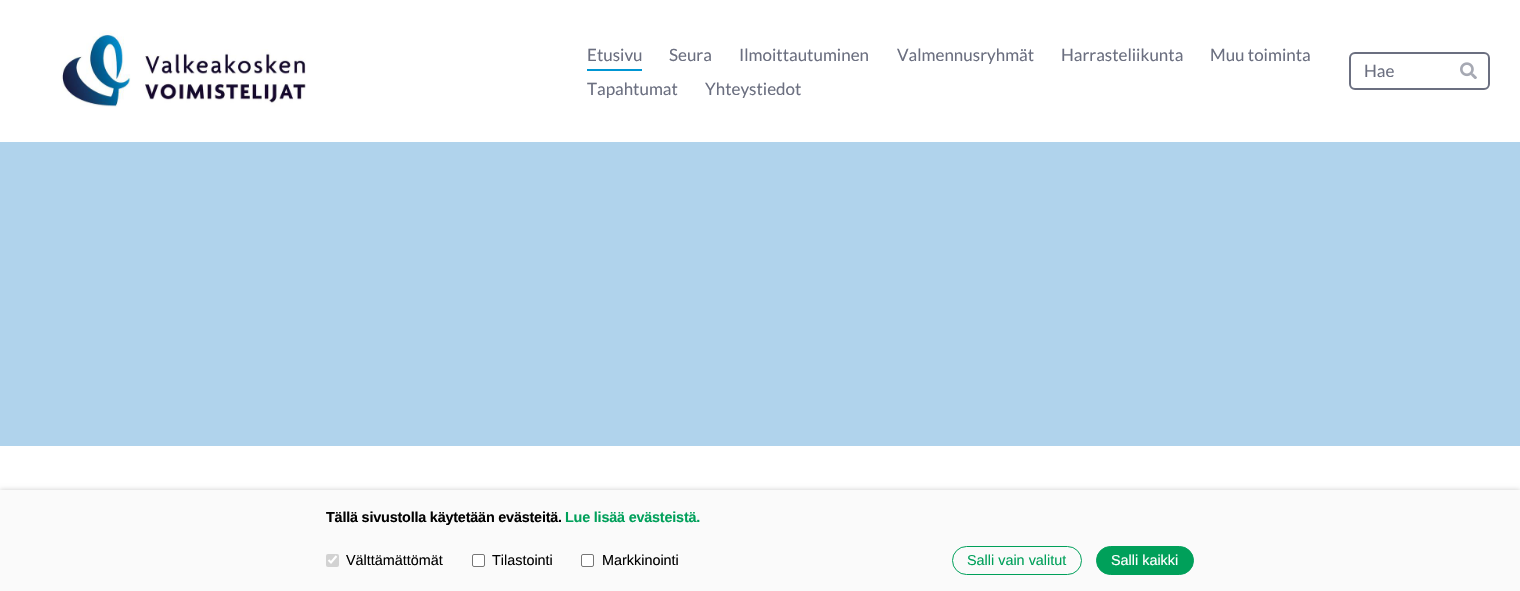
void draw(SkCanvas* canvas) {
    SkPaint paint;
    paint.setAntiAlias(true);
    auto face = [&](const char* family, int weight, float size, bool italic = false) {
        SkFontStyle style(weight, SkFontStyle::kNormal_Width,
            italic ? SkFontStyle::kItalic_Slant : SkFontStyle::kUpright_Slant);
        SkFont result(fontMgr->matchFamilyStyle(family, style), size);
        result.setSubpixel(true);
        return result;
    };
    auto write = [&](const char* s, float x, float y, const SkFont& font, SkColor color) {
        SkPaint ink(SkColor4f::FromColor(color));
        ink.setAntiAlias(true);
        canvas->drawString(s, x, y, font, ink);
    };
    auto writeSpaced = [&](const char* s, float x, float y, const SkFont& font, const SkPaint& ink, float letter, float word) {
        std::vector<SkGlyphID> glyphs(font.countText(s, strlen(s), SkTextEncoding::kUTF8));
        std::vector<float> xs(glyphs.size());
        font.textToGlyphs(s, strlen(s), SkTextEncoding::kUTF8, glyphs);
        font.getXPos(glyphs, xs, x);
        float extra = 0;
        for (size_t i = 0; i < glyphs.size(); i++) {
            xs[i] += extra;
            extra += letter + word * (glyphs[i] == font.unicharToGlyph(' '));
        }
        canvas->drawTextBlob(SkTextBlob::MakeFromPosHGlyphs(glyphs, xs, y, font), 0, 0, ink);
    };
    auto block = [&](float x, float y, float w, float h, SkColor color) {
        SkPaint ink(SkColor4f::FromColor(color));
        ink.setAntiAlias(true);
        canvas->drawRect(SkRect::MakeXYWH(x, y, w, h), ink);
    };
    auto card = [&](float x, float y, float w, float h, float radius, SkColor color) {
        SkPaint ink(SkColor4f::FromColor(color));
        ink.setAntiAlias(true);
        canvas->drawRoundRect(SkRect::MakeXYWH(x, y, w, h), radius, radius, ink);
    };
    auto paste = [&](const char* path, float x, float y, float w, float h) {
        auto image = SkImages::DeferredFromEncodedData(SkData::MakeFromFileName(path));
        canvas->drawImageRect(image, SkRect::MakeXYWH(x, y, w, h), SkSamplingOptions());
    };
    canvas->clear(SK_ColorWHITE);
    block(0, 142, 1520, 304, SkColorSetRGB(176, 211, 236));
    paste("pic1.png", 61, 30, 245, 77);
    auto kFont1 = face("Lato", 400, 17);
    write("Etusivu", 587, 61, kFont1, SkColorSetRGB(107, 111, 128));
    block(587, 69, 55, 2, SkColorSetRGB(0, 150, 211));
    write("Seura", 669, 61, kFont1, SkColorSetRGB(107, 111, 128));
    write("Ilmoittautuminen", 739, 61, kFont1, SkColorSetRGB(107, 111, 128));
    write("Valmennusryhmät", 897, 61, kFont1, SkColorSetRGB(107, 111, 128));
    write("Harrasteliikunta", 1061, 61, kFont1, SkColorSetRGB(107, 111, 128));
    write("Muu toiminta", 1210, 61, kFont1, SkColorSetRGB(107, 111, 128));
    write("Tapahtumat", 587, 95, kFont1, SkColorSetRGB(107, 111, 128));
    write("Yhteystiedot", 705, 95, kFont1, SkColorSetRGB(107, 111, 128));
    paint.setStyle(SkPaint::kStroke_Style);
    paint.setStrokeWidth(2);
    paint.setColor(SkColorSetRGB(107, 111, 128));
    canvas->drawRoundRect(SkRect::MakeXYWH(1350, 53, 139, 36), 5, 5, paint);
    write("Hae", 1364, 77, kFont1, SkColorSetRGB(107, 111, 128));
    paste("pic2.png", 1460, 62, 17, 17);
    paint.setStyle(SkPaint::kFill_Style);
    paint.setColor(SkColorSetARGB(51, 0, 0, 0));
    paint.setMaskFilter(SkMaskFilter::MakeBlur(kNormal_SkBlurStyle, 2.5f));
    canvas->drawRect(SkRect::MakeXYWH(0, 490, 1520, 101), paint);
    paint.setMaskFilter(nullptr);
    block(0, 490, 1520, 101, SkColorSetRGB(250, 250, 250));
    auto kFont2 = face("Liberation Sans", 700, 14.4f);
    paint.setColor(SkColorSetRGB(2, 2, 2));
    writeSpaced("Tällä sivustolla käytetään evästeitä.", 326, 522, kFont2, paint, -0.2f, 0);
    paint.setColor(SkColorSetRGB(0, 160, 90));
    writeSpaced("Lue lisää evästeistä.", 565, 522, kFont2, paint, -0.2f, 0);
    card(326, 554, 13, 13, 2, SkColorSetRGB(210, 210, 210));
    paint.setStyle(SkPaint::kStroke_Style);
    paint.setStrokeWidth(2.1f);
    paint.setColor(SK_ColorWHITE);
    canvas->drawPath(SkPathBuilder().moveTo(328.5f, 560).lineTo(331, 562.5f).lineTo(336.5f, 556).detach(), paint);
    auto kFont3 = face("Liberation Sans", 400, 14.4f);
    write("Välttämättömät", 346, 565, kFont3, SkColorSetRGB(2, 2, 2));
    paint.setStyle(SkPaint::kFill_Style);
    canvas->drawRoundRect(SkRect::MakeXYWH(472.5f, 554.5f, 12, 12), 1.5f, 1.5f, paint);
    paint.setStyle(SkPaint::kStroke_Style);
    paint.setStrokeWidth(1);
    paint.setColor(SkColorSetRGB(118, 118, 118));
    canvas->drawRoundRect(SkRect::MakeXYWH(472.5f, 554.5f, 12, 12), 1.5f, 1.5f, paint);
    write("Tilastointi", 492, 565, kFont3, SkColorSetRGB(2, 2, 2));
    paint.setStyle(SkPaint::kFill_Style);
    paint.setColor(SK_ColorWHITE);
    canvas->drawRoundRect(SkRect::MakeXYWH(581.5f, 554.5f, 12, 12), 1.5f, 1.5f, paint);
    paint.setStyle(SkPaint::kStroke_Style);
    paint.setColor(SkColorSetRGB(118, 118, 118));
    canvas->drawRoundRect(SkRect::MakeXYWH(581.5f, 554.5f, 12, 12), 1.5f, 1.5f, paint);
    write("Markkinointi", 602, 565, kFont3, SkColorSetRGB(2, 2, 2));
    paint.setColor(SkColorSetRGB(0, 160, 90));
    canvas->drawRoundRect(SkRect::MakeXYWH(952.5f, 546.5f, 129, 28), 14, 14, paint);
    write("Salli vain valitut", 967, 565, kFont3, SkColorSetRGB(0, 160, 90));
    paint.setStyle(SkPaint::kFill_Style);
    canvas->drawRoundRect(SkRect::MakeXYWH(1096.5f, 546.5f, 97, 28), 14, 14, paint);
    paint.setStyle(SkPaint::kStroke_Style);
    canvas->drawRoundRect(SkRect::MakeXYWH(1096.5f, 546.5f, 97, 28), 14, 14, paint);
    write("Salli kaikki", 1111, 565, kFont3, SK_ColorWHITE);
}
